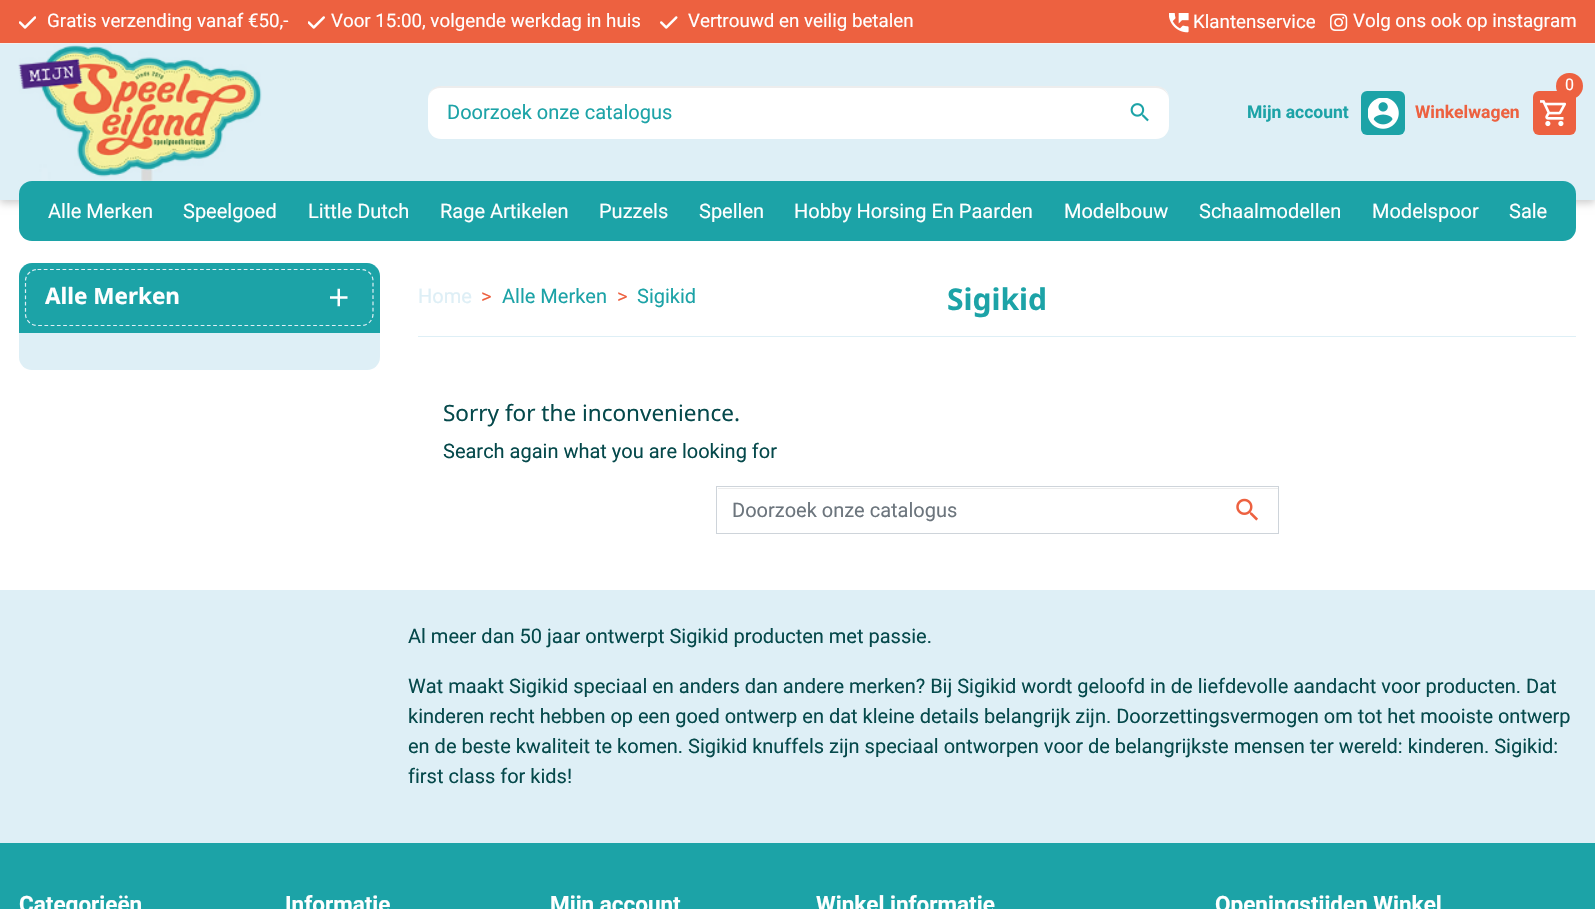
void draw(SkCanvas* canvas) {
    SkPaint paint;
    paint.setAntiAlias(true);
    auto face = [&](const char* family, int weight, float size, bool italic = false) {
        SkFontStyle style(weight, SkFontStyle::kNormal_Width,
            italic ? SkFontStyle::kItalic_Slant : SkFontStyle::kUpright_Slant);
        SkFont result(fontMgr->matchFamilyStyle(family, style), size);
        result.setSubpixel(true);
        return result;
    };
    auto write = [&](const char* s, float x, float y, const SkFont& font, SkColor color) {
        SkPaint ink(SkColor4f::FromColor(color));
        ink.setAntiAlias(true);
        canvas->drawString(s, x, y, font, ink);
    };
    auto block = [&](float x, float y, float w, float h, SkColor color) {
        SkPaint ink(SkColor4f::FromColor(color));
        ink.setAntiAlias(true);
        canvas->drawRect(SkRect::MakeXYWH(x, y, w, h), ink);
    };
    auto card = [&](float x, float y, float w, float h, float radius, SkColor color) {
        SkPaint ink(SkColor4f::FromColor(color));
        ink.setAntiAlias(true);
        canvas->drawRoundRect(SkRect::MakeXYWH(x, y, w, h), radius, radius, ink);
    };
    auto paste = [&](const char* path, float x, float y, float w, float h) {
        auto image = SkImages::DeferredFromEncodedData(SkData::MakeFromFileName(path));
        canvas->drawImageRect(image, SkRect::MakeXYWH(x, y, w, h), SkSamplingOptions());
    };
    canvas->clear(SK_ColorWHITE);
    paint.setColor(SkColorSetARGB(51, 0, 0, 0));
    paint.setMaskFilter(SkMaskFilter::MakeBlur(kNormal_SkBlurStyle, 4));
    canvas->drawRect(SkRect::MakeXYWH(0, 3, 1595, 200), paint);
    paint.setMaskFilter(nullptr);
    block(0, 44, 1595, 156, SkColorSetRGB(222, 239, 246));
    block(0, 0, 1595, 43, SkColorSetRGB(237, 97, 64));
    block(0, 43, 1595, 1, SkColorSetRGB(241, 241, 241));
    paste("pic1.png", 19, 16, 17, 13);
    auto kFont1 = face("Roboto", 400, 18.75f);
    write("Gratis verzending vanaf €50,-", 47, 27, kFont1, SK_ColorWHITE);
    paste("pic2.png", 308, 16, 17, 13);
    write("Voor 15:00, volgende werkdag in huis", 331, 27, kFont1, SK_ColorWHITE);
    paste("pic3.png", 660, 16, 18, 13);
    write("Vertrouwd en veilig betalen", 688, 27, kFont1, SK_ColorWHITE);
    paste("pic4.png", 1169, 13, 20, 20);
    write("Klantenservice", 1193, 28, kFont1, SK_ColorWHITE);
    paste("pic5.png", 1330, 13, 18, 18);
    write("Volg ons ook op instagram", 1353, 27, kFont1, SK_ColorWHITE);
    paste("pic6.png", 18, 43, 244, 139);
    card(428, 86, 741, 53, 13, SK_ColorWHITE);
    paint.setColor(SkColorSetARGB(18, 0, 0, 0));
    canvas->drawPath(SkPathBuilder().moveTo(440, 88).lineTo(1156, 88).cubicTo(1163, 88, 1169, 93, 1169, 100).cubicTo(1169, 93, 1164, 86, 1156, 86).lineTo(441, 86).cubicTo(433, 86, 428, 93, 428, 100).cubicTo(428, 93, 433, 88, 440, 88).close().detach(), paint);
    auto kFont2 = face("Roboto", 400, 20);
    write("Doorzoek onze catalogus", 447, 119, kFont2, SkColorSetRGB(28, 163, 167));
    paste("pic7.png", 1130, 103, 19, 19);
    auto kFont3 = face("Roboto", 700, 17.5f);
    write("Mijn account", 1247, 118, kFont3, SkColorSetRGB(28, 163, 167));
    card(1361, 91, 44, 44, 6, SkColorSetRGB(28, 163, 167));
    paste("pic8.png", 1368, 98, 31, 31);
    card(1533, 91, 43, 44, 6, SkColorSetRGB(237, 97, 64));
    card(1556, 73, 27, 26, 13, SkColorSetRGB(237, 97, 64));
    auto kFont4 = face("Roboto", 400, 16);
    write("0", 1565, 90, kFont4, SK_ColorWHITE);
    paste("pic9.png", 1540, 100, 26, 27);
    write("Winkelwagen", 1415, 118, kFont3, SkColorSetRGB(237, 97, 64));
    card(19, 181, 1557, 60, 13, SkColorSetRGB(28, 163, 167));
    write("Alle Merken", 48, 218, kFont2, SK_ColorWHITE);
    write("Speelgoed", 183, 218, kFont2, SK_ColorWHITE);
    write("Little Dutch", 308, 218, kFont2, SK_ColorWHITE);
    write("Rage Artikelen", 440, 218, kFont2, SK_ColorWHITE);
    write("Puzzels", 599, 218, kFont2, SK_ColorWHITE);
    write("Spellen", 699, 218, kFont2, SK_ColorWHITE);
    write("Hobby Horsing En Paarden", 794, 218, kFont2, SK_ColorWHITE);
    write("Modelbouw", 1064, 218, kFont2, SK_ColorWHITE);
    write("Schaalmodellen", 1199, 218, kFont2, SK_ColorWHITE);
    write("Modelspoor", 1372, 218, kFont2, SK_ColorWHITE);
    write("Sale", 1509, 218, kFont2, SK_ColorWHITE);
    card(19, 263, 361, 107, 13, SkColorSetRGB(222, 239, 246));
    paint.setColor(SkColorSetRGB(28, 163, 167));
    canvas->drawPath(SkPathBuilder().moveTo(32, 263).lineTo(367, 263).cubicTo(374, 263, 380, 269, 380, 276).lineTo(380, 333).lineTo(19, 333).lineTo(19, 276).cubicTo(19, 269, 25, 263, 32, 263).close().detach(), paint);
    paint.setStyle(SkPaint::kStroke_Style);
    paint.setStrokeWidth(1.2f);
    paint.setColor(SkColorSetRGB(222, 239, 246));
    paint.setPathEffect(SkDashPathEffect::Make({{3.75f, 2.5f}}, 0));
    canvas->drawPath(SkPathBuilder().moveTo(37.5f, 269.5f).lineTo(361, 269.5f).cubicTo(368, 269.5f, 373, 274.5f, 373, 281).lineTo(373, 314).cubicTo(373, 320.5f, 368, 325.5f, 361, 325.5f).lineTo(37.5f, 325.5f).cubicTo(31, 325.5f, 25.5f, 320.5f, 25.5f, 314).lineTo(25.5f, 281).cubicTo(25.5f, 274.5f, 31, 269.5f, 37.5f, 269.5f).close().detach(), paint);
    paint.setPathEffect(nullptr);
    auto kFont5 = face("Noto Sans", 700, 22.5f);
    write("Alle Merken", 45, 304, kFont5, SK_ColorWHITE);
    paste("pic10.png", 330, 288, 18, 19);
    block(418, 336, 1158, 1, SkColorSetRGB(222, 239, 246));
    write("Home", 418, 303, kFont2, SkColorSetRGB(222, 239, 246));
    write(">", 481, 303, kFont2, SkColorSetRGB(237, 97, 64));
    write("Alle Merken", 502, 303, kFont2, SkColorSetRGB(28, 163, 167));
    write(">", 617, 303, kFont2, SkColorSetRGB(237, 97, 64));
    write("Sigikid", 637, 303, kFont2, SkColorSetRGB(28, 163, 167));
    auto kFont6 = face("Noto Sans", 700, 30);
    write("Sigikid", 947, 310, kFont6, SkColorSetRGB(28, 163, 167));
    auto kFont7 = face("Noto Sans", 400, 22.5f);
    write("Sorry for the inconvenience.", 443, 421, kFont7, SkColorSetRGB(5, 73, 75));
    write("Search again what you are looking for", 443, 458, kFont2, SkColorSetRGB(5, 73, 75));
    block(718, 488, 560, 1, SkColorSetRGB(236, 236, 236));
    paint.setStrokeWidth(1);
    paint.setColor(SkColorSetRGB(206, 212, 218));
    canvas->drawRect(SkRect::MakeXYWH(716.5f, 486.5f, 562, 47), paint);
    write("Doorzoek onze catalogus", 732, 517, kFont2, SkColorSetRGB(108, 117, 125));
    paste("pic11.png", 1236, 498, 22, 23);
    block(0, 590, 1595, 253, SkColorSetRGB(222, 239, 246));
    write("Al meer dan 50 jaar ontwerpt Sigikid producten met passie.", 408, 643, kFont2, SkColorSetRGB(5, 73, 75));
    write("Wat maakt Sigikid speciaal en anders dan andere merken? Bij Sigikid wordt geloofd in de liefdevolle aandacht voor producten. Dat", 408, 693, kFont2, SkColorSetRGB(5, 73, 75));
    write("kinderen recht hebben op een goed ontwerp en dat kleine details belangrijk zijn. Doorzettingsvermogen om tot het mooiste ontwerp", 408, 723, kFont2, SkColorSetRGB(5, 73, 75));
    write("en de beste kwaliteit te komen. Sigikid knuffels zijn speciaal ontworpen voor de belangrijkste mensen ter wereld: kinderen. Sigikid:", 408, 753, kFont2, SkColorSetRGB(5, 73, 75));
    write("first class for kids!", 408, 783, kFont2, SkColorSetRGB(5, 73, 75));
    block(0, 843, 1595, 66, SkColorSetRGB(28, 163, 167));
    auto kFont8 = face("Roboto", 700, 22.5f);
    write("Categorieën", 19, 912, kFont8, SK_ColorWHITE);
    write("Informatie", 285, 912, kFont8, SK_ColorWHITE);
    write("Mijn account", 550, 912, kFont8, SK_ColorWHITE);
    write("Winkel informatie", 816, 912, kFont8, SK_ColorWHITE);
    write("Openingstijden Winkel", 1215, 912, kFont8, SK_ColorWHITE);
}
